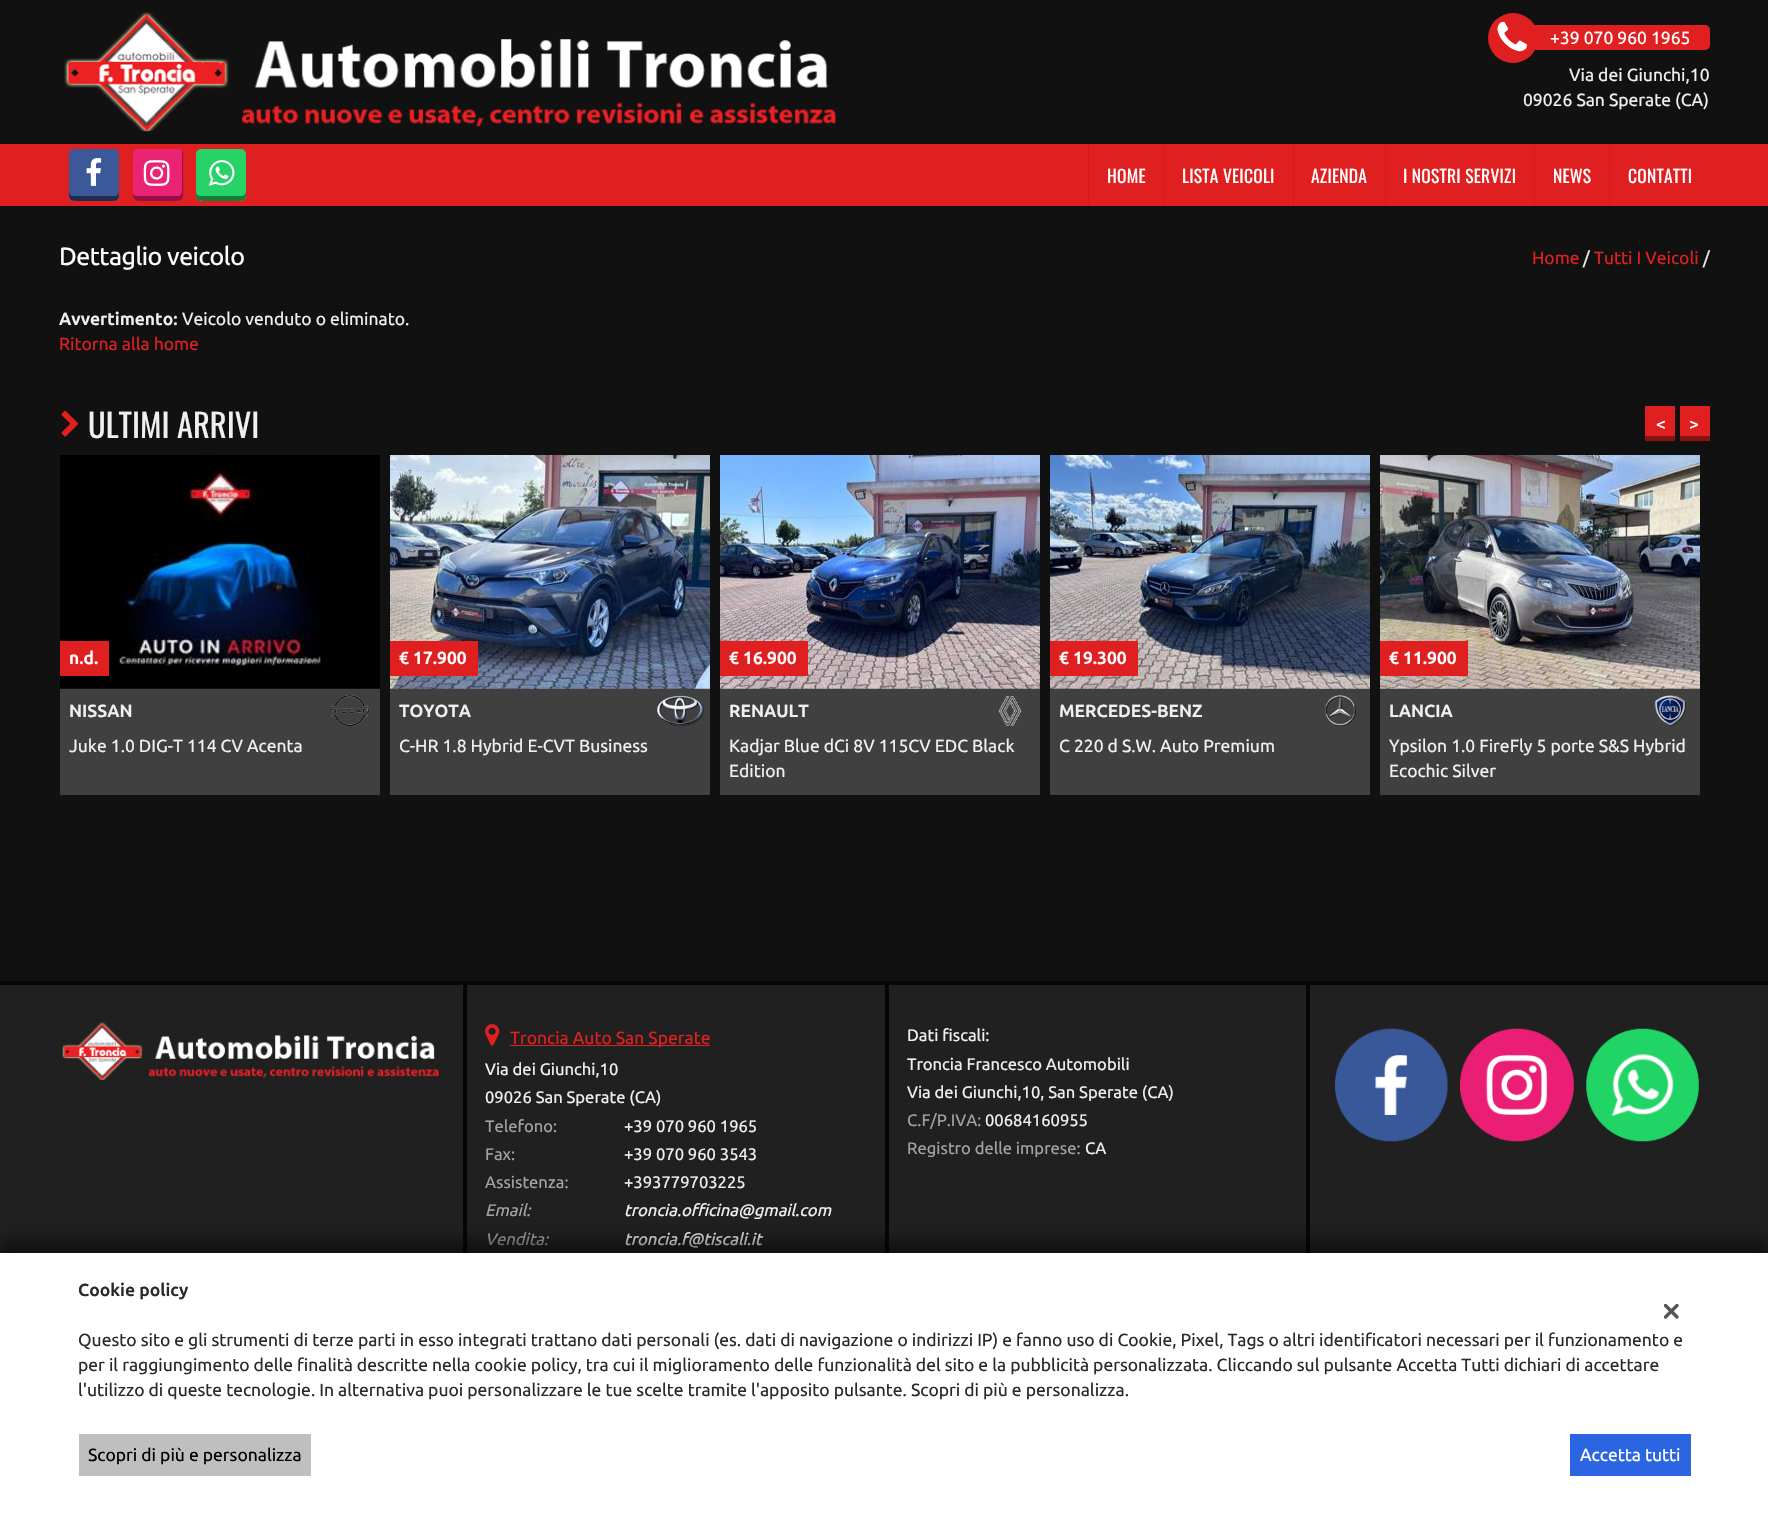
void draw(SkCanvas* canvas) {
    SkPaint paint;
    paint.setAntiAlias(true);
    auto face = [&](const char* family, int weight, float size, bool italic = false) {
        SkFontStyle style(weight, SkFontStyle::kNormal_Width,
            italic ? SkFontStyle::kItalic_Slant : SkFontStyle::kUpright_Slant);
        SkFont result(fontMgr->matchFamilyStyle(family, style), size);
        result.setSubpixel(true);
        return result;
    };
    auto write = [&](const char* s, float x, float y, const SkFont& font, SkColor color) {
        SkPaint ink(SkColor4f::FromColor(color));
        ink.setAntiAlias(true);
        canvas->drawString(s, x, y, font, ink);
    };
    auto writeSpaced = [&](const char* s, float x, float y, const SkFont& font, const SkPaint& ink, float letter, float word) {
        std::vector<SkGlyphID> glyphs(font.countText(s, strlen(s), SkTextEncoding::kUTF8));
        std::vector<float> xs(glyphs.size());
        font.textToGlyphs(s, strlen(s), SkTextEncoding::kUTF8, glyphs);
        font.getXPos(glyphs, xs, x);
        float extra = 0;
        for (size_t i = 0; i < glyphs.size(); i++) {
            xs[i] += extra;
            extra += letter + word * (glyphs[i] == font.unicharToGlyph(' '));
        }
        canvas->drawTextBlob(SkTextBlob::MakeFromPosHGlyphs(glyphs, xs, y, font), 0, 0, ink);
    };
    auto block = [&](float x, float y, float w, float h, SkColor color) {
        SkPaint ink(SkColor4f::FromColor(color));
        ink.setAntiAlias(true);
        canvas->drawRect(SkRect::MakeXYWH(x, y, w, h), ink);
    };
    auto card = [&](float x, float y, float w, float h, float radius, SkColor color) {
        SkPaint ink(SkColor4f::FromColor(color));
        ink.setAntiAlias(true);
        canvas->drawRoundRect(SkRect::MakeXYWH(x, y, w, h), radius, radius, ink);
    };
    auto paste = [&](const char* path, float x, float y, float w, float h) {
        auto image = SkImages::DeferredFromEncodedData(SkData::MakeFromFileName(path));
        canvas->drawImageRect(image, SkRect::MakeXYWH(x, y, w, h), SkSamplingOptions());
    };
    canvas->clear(SkColorSetRGB(17, 17, 17));
    paste("pic1.png", 64, 12, 772, 120);
    paint.setColor(SkColorSetRGB(224, 32, 32));
    canvas->drawCircle(1513, 38, 25, paint);
    paste("pic2.png", 1497, 21, 30, 31);
    card(1531, 25, 179, 25, 5, SkColorSetRGB(224, 32, 32));
    auto kFont1 = face("Ubuntu", 400, 17.5f);
    write("+39 070 960 1965", 1550, 44, kFont1, SK_ColorWHITE);
    write("Via dei Giunchi,10", 1569, 81, kFont1, SkColorSetRGB(240, 240, 240));
    write("09026 San Sperate (CA)", 1523, 106, kFont1, SkColorSetRGB(240, 240, 240));
    block(0, 144, 1768, 62, SkColorSetRGB(224, 32, 32));
    card(69, 149, 50, 52, 5, SkColorSetRGB(59, 89, 152));
    paint.setColor(SkColorSetRGB(30, 46, 79));
    canvas->drawPath(SkPathBuilder().moveTo(69, 191).cubicTo(69, 201, 70, 201, 81, 201).lineTo(107, 201).cubicTo(118, 201, 119, 201, 119, 191).cubicTo(119, 194, 117, 196, 114, 196).lineTo(74, 196).cubicTo(71, 196, 69, 194, 69, 191).close().detach(), paint);
    paste("pic3.png", 86, 158, 16, 28);
    card(133, 149, 50, 52, 5, SkColorSetRGB(234, 35, 116));
    paint.setColor(SkColorSetRGB(152, 15, 71));
    canvas->drawPath(SkPathBuilder().moveTo(133, 194).cubicTo(133, 202, 137, 201, 145, 201).lineTo(158, 201).cubicTo(188, 201, 183, 205, 183, 175).lineTo(183, 161).cubicTo(183, 159, 184, 154, 182, 151).lineTo(182, 191).cubicTo(182, 194, 180, 196, 178, 196).lineTo(138, 196).cubicTo(136, 196, 134, 195, 133, 194).close().detach(), paint);
    paste("pic4.png", 143, 160, 27, 26);
    card(196, 149, 50, 52, 5, SkColorSetRGB(37, 211, 102));
    paint.setColor(SkColorSetRGB(22, 124, 60));
    canvas->drawPath(SkPathBuilder().moveTo(196, 191).cubicTo(196, 201, 197, 201, 208, 201).lineTo(234, 201).cubicTo(245, 201, 246, 201, 246, 191).cubicTo(246, 194, 244, 196, 241, 196).lineTo(201, 196).cubicTo(198, 196, 196, 194, 196, 191).close().detach(), paint);
    paste("pic5.png", 208, 160, 27, 26);
    block(1088, 144, 1, 62, SkColorSetRGB(207, 29, 29));
    auto kFont2 = face("Oswald", 400, 17.5f);
    paint.setColor(SK_ColorWHITE);
    writeSpaced("HOME", 1107, 183, kFont2, paint, 0.25f, 0);
    block(1164, 144, 1, 62, SkColorSetRGB(207, 29, 29));
    writeSpaced("LISTA VEICOLI", 1182, 183, kFont2, paint, 0.25f, 0);
    block(1293, 144, 1, 62, SkColorSetRGB(207, 29, 29));
    writeSpaced("AZIENDA", 1311, 183, kFont2, paint, 0.25f, 0);
    block(1385, 144, 1, 62, SkColorSetRGB(207, 29, 29));
    writeSpaced("I NOSTRI SERVIZI", 1403, 183, kFont2, paint, 0.25f, 0);
    block(1534, 144, 1, 62, SkColorSetRGB(207, 29, 29));
    writeSpaced("NEWS", 1553, 183, kFont2, paint, 0.25f, 0);
    block(1609, 144, 1, 62, SkColorSetRGB(207, 29, 29));
    writeSpaced("CONTATTI", 1628, 183, kFont2, paint, 0.25f, 0);
    auto kFont3 = face("Ubuntu", 400, 25);
    writeSpaced("Dettaglio veicolo", 59, 265, kFont3, paint, -0.5f, 0);
    write("Home", 1532, 264, kFont1, SkColorSetRGB(224, 32, 32));
    write("/", 1583, 264, kFont1, SkColorSetRGB(240, 240, 240));
    write("Tutti I Veicoli", 1594, 264, kFont1, SkColorSetRGB(224, 32, 32));
    write("/", 1703, 264, kFont1, SkColorSetRGB(240, 240, 240));
    auto kFont4 = face("Ubuntu", 700, 17.5f);
    write("Avvertimento:", 59, 325, kFont4, SkColorSetRGB(240, 240, 240));
    write("Veicolo venduto o eliminato.", 182, 325, kFont1, SkColorSetRGB(240, 240, 240));
    write("Ritorna alla home", 59, 350, kFont1, SkColorSetRGB(224, 32, 32));
    paste("pic6.png", 61, 410, 18, 27);
    auto kFont5 = face("Oswald", 400, 32.5f);
    write("ULTIMI ARRIVI", 88, 438, kFont5, SkColorSetRGB(240, 240, 240));
    block(1645, 406, 30, 30, SkColorSetRGB(224, 32, 32));
    block(1645, 436, 30, 5, SkColorSetRGB(135, 19, 19));
    write("<", 1656, 430, kFont1, SK_ColorWHITE);
    block(1680, 406, 30, 30, SkColorSetRGB(224, 32, 32));
    block(1680, 436, 30, 5, SkColorSetRGB(135, 19, 19));
    write(">", 1689, 430, kFont1, SK_ColorWHITE);
    block(60, 688, 320, 107, SkColorSetRGB(64, 64, 64));
    paste("pic7.png", 60, 455, 320, 234);
    block(60, 641, 49, 35, SkColorSetRGB(224, 32, 32));
    write("n.d.", 69, 664, kFont4, SK_ColorWHITE);
    write("NISSAN", 69, 717, kFont4, SkColorSetRGB(240, 240, 240));
    paste("pic8.png", 330, 695, 39, 32);
    write("Juke 1.0 DIG-T 114 CV Acenta", 69, 752, kFont1, SkColorSetRGB(240, 240, 240));
    block(390, 688, 320, 107, SkColorSetRGB(64, 64, 64));
    paste("pic9.png", 390, 455, 320, 234);
    block(390, 641, 88, 35, SkColorSetRGB(224, 32, 32));
    write("€ 17.900", 399, 664, kFont4, SK_ColorWHITE);
    write("TOYOTA", 399, 717, kFont4, SkColorSetRGB(240, 240, 240));
    paste("pic10.png", 657, 695, 47, 32);
    write("C-HR 1.8 Hybrid E-CVT Business", 399, 752, kFont1, SkColorSetRGB(240, 240, 240));
    block(720, 688, 320, 107, SkColorSetRGB(64, 64, 64));
    paste("pic11.png", 720, 455, 320, 234);
    block(720, 641, 88, 35, SkColorSetRGB(224, 32, 32));
    write("€ 16.900", 729, 664, kFont4, SK_ColorWHITE);
    write("RENAULT", 729, 717, kFont4, SkColorSetRGB(240, 240, 240));
    paste("pic12.png", 998, 696, 24, 30);
    write("Kadjar Blue dCi 8V 115CV EDC Black", 729, 752, kFont1, SkColorSetRGB(240, 240, 240));
    write("Edition", 729, 777, kFont1, SkColorSetRGB(240, 240, 240));
    block(1050, 688, 320, 107, SkColorSetRGB(64, 64, 64));
    paste("pic13.png", 1050, 455, 320, 234);
    block(1050, 641, 88, 35, SkColorSetRGB(224, 32, 32));
    write("€ 19.300", 1059, 664, kFont4, SK_ColorWHITE);
    write("MERCEDES-BENZ", 1059, 717, kFont4, SkColorSetRGB(240, 240, 240));
    paste("pic14.png", 1325, 695, 31, 32);
    write("C 220 d S.W. Auto Premium", 1059, 752, kFont1, SkColorSetRGB(240, 240, 240));
    block(1380, 688, 320, 107, SkColorSetRGB(64, 64, 64));
    paste("pic15.png", 1380, 455, 320, 234);
    block(1380, 641, 88, 35, SkColorSetRGB(224, 32, 32));
    write("€ 11.900", 1389, 664, kFont4, SK_ColorWHITE);
    write("LANCIA", 1389, 717, kFont4, SkColorSetRGB(240, 240, 240));
    paste("pic16.png", 1654, 695, 32, 32);
    write("Ypsilon 1.0 FireFly 5 porte S&S Hybrid", 1389, 752, kFont1, SkColorSetRGB(240, 240, 240));
    write("Ecochic Silver", 1389, 777, kFont1, SkColorSetRGB(240, 240, 240));
    block(0, 985, 1768, 268, SkColorSetRGB(32, 32, 32));
    block(0, 981, 1768, 4, SkColorSetRGB(6, 6, 6));
    paste("pic17.png", 62, 1022, 377, 58);
    block(463, 985, 4, 268, SkColorSetRGB(6, 6, 6));
    paste("pic18.png", 485, 1024, 15, 22);
    block(510, 1045, 200, 1, SkColorSetRGB(224, 32, 32));
    write("Troncia Auto San Sperate", 510, 1044, kFont1, SkColorSetRGB(224, 32, 32));
    auto kFont6 = face("Ubuntu", 400, 16.6f);
    write("Via dei Giunchi,10", 485, 1075, kFont6, SkColorSetRGB(240, 240, 240));
    write("09026 San Sperate (CA)", 485, 1103, kFont6, SkColorSetRGB(240, 240, 240));
    write("Telefono:", 485, 1132, kFont6, SkColorSetRGB(163, 163, 163));
    write("+39 070 960 1965", 624, 1132, kFont6, SkColorSetRGB(240, 240, 240));
    write("Fax:", 485, 1160, kFont6, SkColorSetRGB(163, 163, 163));
    write("+39 070 960 3543", 624, 1160, kFont6, SkColorSetRGB(240, 240, 240));
    write("Assistenza:", 485, 1188, kFont6, SkColorSetRGB(163, 163, 163));
    write("+393779703225", 624, 1188, kFont6, SkColorSetRGB(240, 240, 240));
    auto kFont7 = face("Ubuntu", 400, 16.6f, true);
    write("Email:", 485, 1216, kFont7, SkColorSetRGB(163, 163, 163));
    write("troncia.officina@gmail.com", 624, 1216, kFont7, SkColorSetRGB(240, 240, 240));
    write("Vendita:", 485, 1245, kFont7, SkColorSetRGB(163, 163, 163));
    write("troncia.f@tiscali.it", 624, 1245, kFont7, SkColorSetRGB(240, 240, 240));
    block(885, 985, 4, 268, SkColorSetRGB(6, 6, 6));
    write("Dati fiscali:", 907, 1041, kFont6, SkColorSetRGB(240, 240, 240));
    write("Troncia Francesco Automobili", 907, 1070, kFont6, SkColorSetRGB(240, 240, 240));
    write("Via dei Giunchi,10, San Sperate (CA)", 907, 1098, kFont6, SkColorSetRGB(240, 240, 240));
    write("C.F/P.IVA:", 907, 1126, kFont6, SkColorSetRGB(163, 163, 163));
    write("00684160955", 985, 1126, kFont6, SkColorSetRGB(240, 240, 240));
    write("Registro delle imprese:", 907, 1154, kFont6, SkColorSetRGB(163, 163, 163));
    write("CA", 1085, 1154, kFont6, SkColorSetRGB(240, 240, 240));
    block(1306, 985, 4, 268, SkColorSetRGB(6, 6, 6));
    paste("pic19.png", 1335, 1028, 113, 114);
    paste("pic20.png", 1460, 1028, 114, 114);
    paste("pic21.png", 1586, 1028, 113, 114);
    paint.setColor(SkColorSetARGB(128, 0, 0, 0));
    paint.setMaskFilter(SkMaskFilter::MakeBlur(kNormal_SkBlurStyle, 7.5f));
    canvas->drawRect(SkRect::MakeXYWH(0, 1240, 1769, 261), paint);
    paint.setMaskFilter(nullptr);
    block(0, 1253, 1768, 260, SK_ColorWHITE);
    write("Cookie policy", 78, 1296, kFont4, SkColorSetRGB(43, 41, 41));
    write("Questo sito e gli strumenti di terze parti in esso integrati trattano dati personali (es. dati di navigazione o indirizzi IP) e fanno uso di Cookie, Pixel, Tags o altri identificatori necessari per il funzionamento e", 78, 1346, kFont1, SkColorSetRGB(43, 41, 41));
    write("per il raggiungimento delle finalità descritte nella cookie policy, tra cui il miglioramento delle funzionalità del sito e la pubblicità personalizzata. Cliccando sul pulsante Accetta Tutti dichiari di accettare", 78, 1371, kFont1, SkColorSetRGB(43, 41, 41));
    write("l'utilizzo di queste tecnologie. In alternativa puoi personalizzare le tue scelte tramite l'apposito pulsante. Scopri di più e personalizza.", 78, 1396, kFont1, SkColorSetRGB(43, 41, 41));
    block(79, 1434, 232, 42, SkColorSetRGB(191, 191, 191));
    write("Scopri di più e personalizza", 88, 1461, kFont1, SK_ColorBLACK);
    block(1570, 1434, 121, 42, SkColorSetRGB(44, 101, 225));
    write("Accetta tutti", 1580, 1461, kFont1, SK_ColorWHITE);
    paste("pic22.png", 1664, 1304, 15, 15);
}
